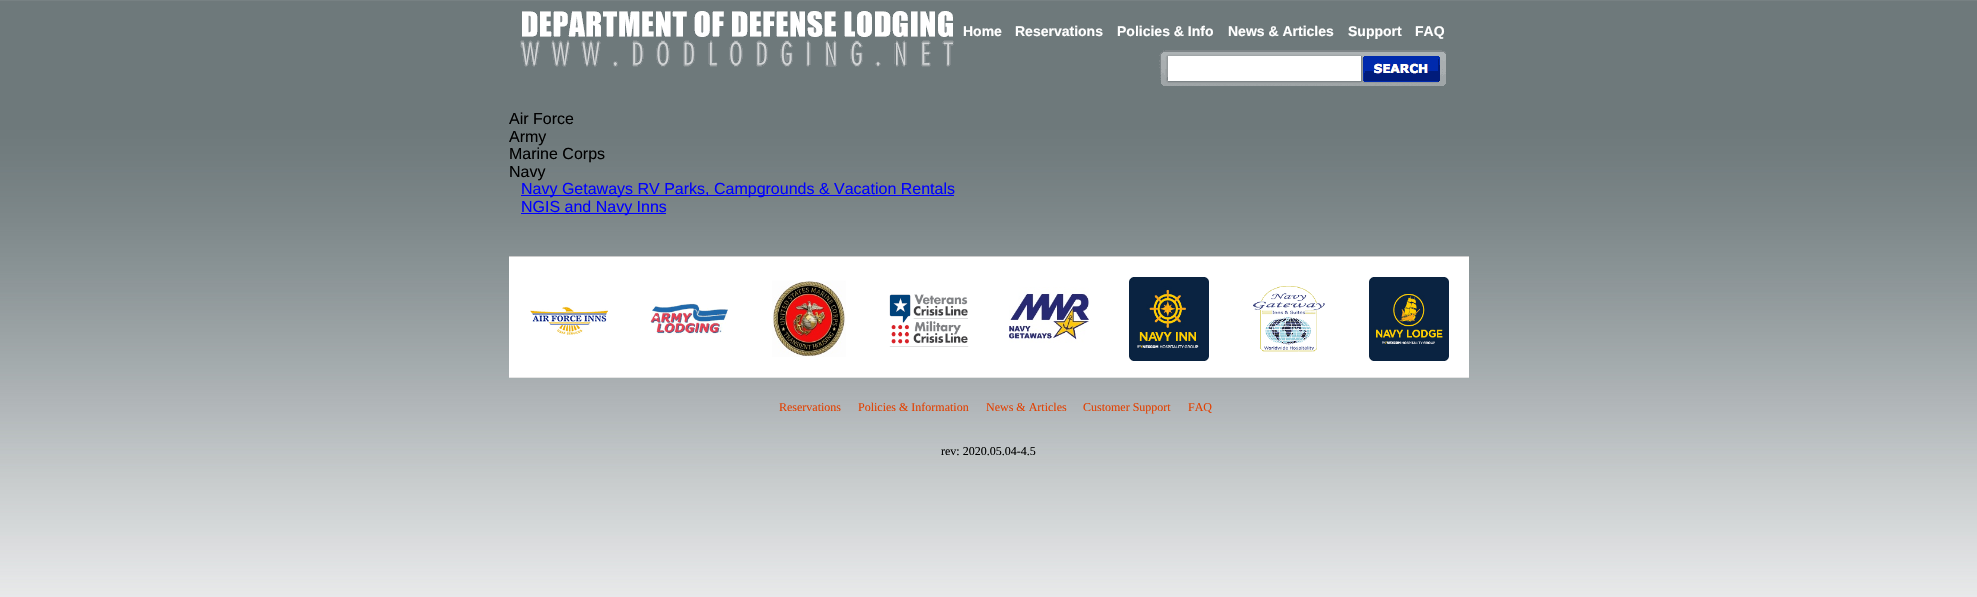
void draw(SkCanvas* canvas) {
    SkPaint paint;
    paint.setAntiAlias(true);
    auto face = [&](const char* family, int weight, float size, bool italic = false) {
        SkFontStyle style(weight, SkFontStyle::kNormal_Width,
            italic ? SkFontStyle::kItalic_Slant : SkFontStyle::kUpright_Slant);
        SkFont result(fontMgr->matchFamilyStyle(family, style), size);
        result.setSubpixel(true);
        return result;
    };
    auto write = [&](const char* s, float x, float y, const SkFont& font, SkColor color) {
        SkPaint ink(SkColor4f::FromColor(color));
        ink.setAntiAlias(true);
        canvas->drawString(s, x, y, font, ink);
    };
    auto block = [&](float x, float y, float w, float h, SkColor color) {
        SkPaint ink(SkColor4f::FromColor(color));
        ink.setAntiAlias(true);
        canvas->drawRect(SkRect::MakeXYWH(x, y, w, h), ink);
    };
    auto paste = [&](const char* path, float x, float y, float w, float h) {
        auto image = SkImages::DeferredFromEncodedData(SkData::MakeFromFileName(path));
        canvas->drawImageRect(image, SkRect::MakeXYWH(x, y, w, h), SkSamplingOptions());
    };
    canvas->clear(SK_ColorWHITE);
    paste("pic1.png", 0, 0, 1977, 597);
    paste("pic2.png", 520, 11, 434, 56);
    auto kFont1 = face("Liberation Sans", 700, 14);
    write("Home", 963, 36, kFont1, SK_ColorWHITE);
    write("Reservations", 1015, 36, kFont1, SK_ColorWHITE);
    write("Policies & Info", 1117, 36, kFont1, SK_ColorWHITE);
    write("News & Articles", 1228, 36, kFont1, SK_ColorWHITE);
    write("Support", 1348, 36, kFont1, SK_ColorWHITE);
    write("FAQ", 1415, 36, kFont1, SK_ColorWHITE);
    paste("pic3.png", 1159, 50, 287, 36);
    auto kFont2 = face("Liberation Sans", 400, 16);
    write("Air Force", 509, 124, kFont2, SK_ColorBLACK);
    write("Army", 509, 142, kFont2, SK_ColorBLACK);
    write("Marine Corps", 509, 159, kFont2, SK_ColorBLACK);
    write("Navy", 509, 177, kFont2, SK_ColorBLACK);
    block(521, 195, 433, 1, SkColorSetRGB(0, 0, 255));
    write("Navy Getaways RV Parks, Campgrounds & Vacation Rentals", 521, 194, kFont2, SkColorSetRGB(0, 0, 255));
    block(521, 213, 145, 1, SkColorSetRGB(0, 0, 255));
    write("NGIS and Navy Inns", 521, 212, kFont2, SkColorSetRGB(0, 0, 255));
    block(509, 257, 960, 120, SK_ColorWHITE);
    block(509, 256, 960, 1, SkColorSetRGB(204, 204, 204));
    block(509, 377, 960, 1, SkColorSetRGB(230, 230, 230));
    paste("pic4.png", 530, 306, 78, 29);
    paste("pic5.png", 650, 302, 78, 33);
    paste("pic6.png", 772, 280, 74, 77);
    paste("pic7.png", 889, 294, 80, 53);
    paste("pic8.png", 1009, 287, 80, 56);
    paste("pic9.png", 1129, 277, 80, 84);
    paste("pic10.png", 1253, 286, 72, 66);
    paste("pic11.png", 1369, 277, 80, 84);
    auto kFont3 = face("Liberation Serif", 400, 12);
    write("Reservations", 779, 411, kFont3, SkColorSetRGB(226, 65, 2));
    write("Policies & Information", 858, 411, kFont3, SkColorSetRGB(226, 65, 2));
    write("News & Articles", 986, 411, kFont3, SkColorSetRGB(226, 65, 2));
    write("Customer Support", 1083, 411, kFont3, SkColorSetRGB(226, 65, 2));
    write("FAQ", 1188, 411, kFont3, SkColorSetRGB(226, 65, 2));
    write("rev: 2020.05.04-4.5", 941, 455, kFont3, SK_ColorBLACK);
}
